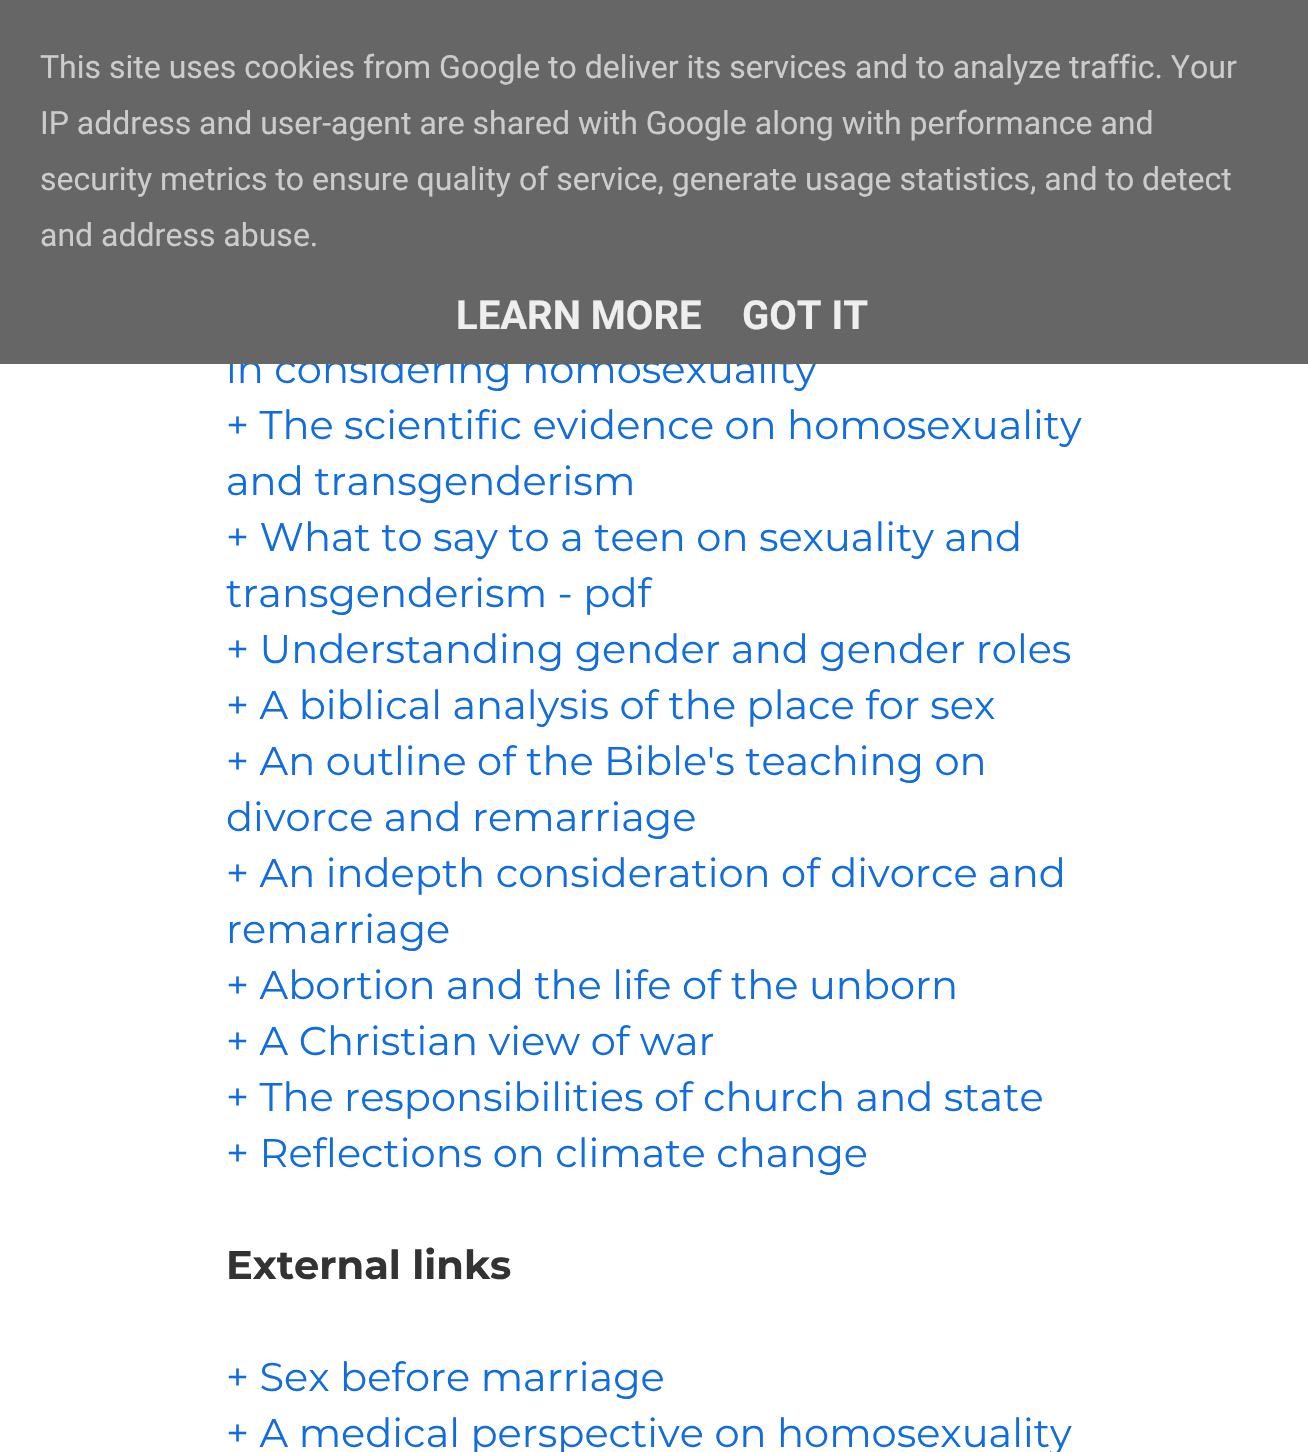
void draw(SkCanvas* canvas) {
    SkPaint paint;
    paint.setAntiAlias(true);
    auto face = [&](const char* family, int weight, float size, bool italic = false) {
        SkFontStyle style(weight, SkFontStyle::kNormal_Width,
            italic ? SkFontStyle::kItalic_Slant : SkFontStyle::kUpright_Slant);
        SkFont result(fontMgr->matchFamilyStyle(family, style), size);
        result.setSubpixel(true);
        return result;
    };
    auto write = [&](const char* s, float x, float y, const SkFont& font, SkColor color) {
        SkPaint ink(SkColor4f::FromColor(color));
        ink.setAntiAlias(true);
        canvas->drawString(s, x, y, font, ink);
    };
    auto block = [&](float x, float y, float w, float h, SkColor color) {
        SkPaint ink(SkColor4f::FromColor(color));
        ink.setAntiAlias(true);
        canvas->drawRect(SkRect::MakeXYWH(x, y, w, h), ink);
    };
    canvas->clear(SK_ColorWHITE);
    auto kFont1 = face("Montserrat", 400, 40);
    write("in considering homosexuality", 226, 383, kFont1, SkColorSetRGB(17, 109, 223));
    block(0, 0, 1308, 364, SkColorSetRGB(102, 102, 102));
    auto kFont2 = face("Roboto", 400, 32);
    write("This site uses cookies from Google to deliver its services and to analyze traffic. Your", 40, 78, kFont2, SkColorSetRGB(204, 204, 204));
    write("IP address and user-agent are shared with Google along with performance and", 40, 134, kFont2, SkColorSetRGB(204, 204, 204));
    write("security metrics to ensure quality of service, generate usage statistics, and to detect", 40, 190, kFont2, SkColorSetRGB(204, 204, 204));
    write("and address abuse.", 40, 246, kFont2, SkColorSetRGB(204, 204, 204));
    auto kFont3 = face("Roboto", 700, 40);
    write("LEARN MORE", 456, 329, kFont3, SkColorSetRGB(238, 238, 238));
    write("GOT IT", 742, 329, kFont3, SkColorSetRGB(238, 238, 238));
    write("+ The scientific evidence on homosexuality", 226, 439, kFont1, SkColorSetRGB(17, 109, 223));
    write("and transgenderism", 226, 495, kFont1, SkColorSetRGB(17, 109, 223));
    write("+ What to say to a teen on sexuality and", 226, 551, kFont1, SkColorSetRGB(17, 109, 223));
    write("transgenderism - pdf", 226, 607, kFont1, SkColorSetRGB(17, 109, 223));
    write("+ Understanding gender and gender roles", 226, 663, kFont1, SkColorSetRGB(17, 109, 223));
    write("+ A biblical analysis of the place for sex", 226, 719, kFont1, SkColorSetRGB(17, 109, 223));
    write("+ An outline of the Bible's teaching on", 226, 775, kFont1, SkColorSetRGB(17, 109, 223));
    write("divorce and remarriage", 226, 831, kFont1, SkColorSetRGB(17, 109, 223));
    write("+ An indepth consideration of divorce and", 226, 887, kFont1, SkColorSetRGB(17, 109, 223));
    write("remarriage", 226, 943, kFont1, SkColorSetRGB(17, 109, 223));
    write("+ Abortion and the life of the unborn", 226, 999, kFont1, SkColorSetRGB(17, 109, 223));
    write("+ A Christian view of war", 226, 1055, kFont1, SkColorSetRGB(17, 109, 223));
    write("+ The responsibilities of church and state", 226, 1111, kFont1, SkColorSetRGB(17, 109, 223));
    write("+ Reflections on climate change", 226, 1167, kFont1, SkColorSetRGB(17, 109, 223));
    auto kFont4 = face("Montserrat", 700, 40);
    write("External links", 226, 1279, kFont4, SkColorSetRGB(51, 51, 51));
    write("+ Sex before marriage", 226, 1391, kFont1, SkColorSetRGB(17, 109, 223));
    write("+ A medical perspective on homosexuality", 226, 1447, kFont1, SkColorSetRGB(17, 109, 223));
}
